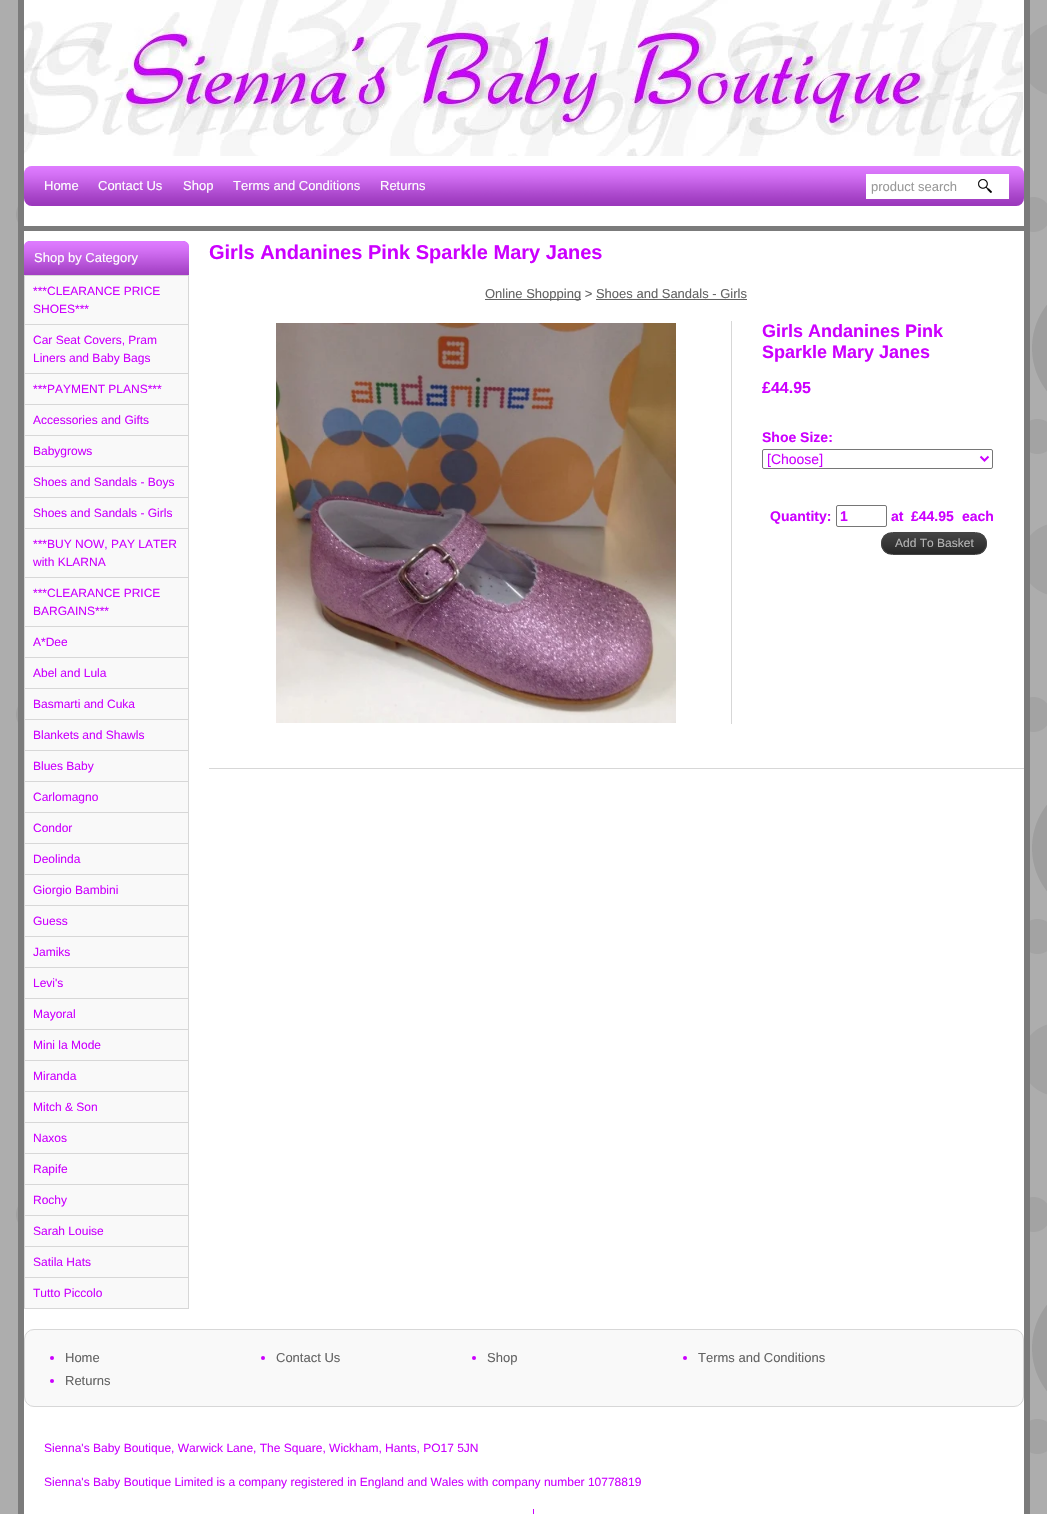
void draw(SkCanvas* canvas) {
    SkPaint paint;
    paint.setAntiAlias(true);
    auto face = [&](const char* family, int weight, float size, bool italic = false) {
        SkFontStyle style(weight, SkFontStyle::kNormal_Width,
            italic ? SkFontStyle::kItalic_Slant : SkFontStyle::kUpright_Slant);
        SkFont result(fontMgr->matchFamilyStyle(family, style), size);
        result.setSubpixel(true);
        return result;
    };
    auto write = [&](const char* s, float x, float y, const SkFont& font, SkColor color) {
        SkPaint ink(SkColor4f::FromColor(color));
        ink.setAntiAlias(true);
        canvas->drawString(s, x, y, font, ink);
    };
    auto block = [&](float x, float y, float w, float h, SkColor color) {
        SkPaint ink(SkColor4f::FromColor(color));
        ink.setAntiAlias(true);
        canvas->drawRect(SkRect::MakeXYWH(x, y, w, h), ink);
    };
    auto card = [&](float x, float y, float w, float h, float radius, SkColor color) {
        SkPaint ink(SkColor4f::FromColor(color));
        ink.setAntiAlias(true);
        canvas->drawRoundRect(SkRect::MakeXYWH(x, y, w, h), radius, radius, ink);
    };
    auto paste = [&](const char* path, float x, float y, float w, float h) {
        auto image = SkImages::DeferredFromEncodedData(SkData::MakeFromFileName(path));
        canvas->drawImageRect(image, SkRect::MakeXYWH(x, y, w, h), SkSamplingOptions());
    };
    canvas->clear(SkColorSetRGB(153, 153, 153));
    paste("pic1.png", 0, 0, 1047, 1514);
    block(24, 0, 1000, 1514, SK_ColorWHITE);
    block(1024, 0, 6, 1514, SkColorSetRGB(123, 123, 123));
    block(18, 0, 6, 1514, SkColorSetRGB(123, 123, 123));
    paste("pic2.png", 24, 0, 1000, 156);
    paste("pic3.png", 24, 150, 1, 4);
    card(24, 166, 1000, 40, 8, SkColorSetRGB(204, 51, 255));
    paste("pic4.png", 24, 166, 1000, 40);
    auto kFont1 = face("Liberation Sans", 400, 13);
    write("Home", 44, 190, kFont1, SK_ColorWHITE);
    write("Contact Us", 98, 190, kFont1, SK_ColorWHITE);
    write("Shop", 183, 190, kFont1, SK_ColorWHITE);
    write("Terms and Conditions", 233, 190, kFont1, SK_ColorWHITE);
    write("Returns", 380, 190, kFont1, SK_ColorWHITE);
    block(866, 174, 143, 25, SK_ColorWHITE);
    write("product search", 871, 191, kFont1, SkColorSetRGB(153, 153, 153));
    paste("pic5.png", 978, 179, 14, 14);
    block(24, 226, 1000, 5, SkColorSetRGB(123, 123, 123));
    paint.setColor(SkColorSetRGB(204, 51, 255));
    canvas->drawPath(SkPathBuilder().moveTo(30, 241).lineTo(183, 241).cubicTo(186.5f, 241, 189, 243.5f, 189, 247).lineTo(189, 275).lineTo(24, 275).lineTo(24, 247).cubicTo(24, 243.5f, 26.5f, 241, 30, 241).close().detach(), paint);
    paste("pic6.png", 24, 241, 165, 34);
    write("Shop by Category", 34, 262, kFont1, SK_ColorWHITE);
    block(25, 276, 163, 1032, SkColorSetRGB(249, 249, 249));
    block(188, 275, 1, 1034, SkColorSetRGB(215, 215, 215));
    block(24, 1308, 165, 1, SkColorSetRGB(215, 215, 215));
    block(24, 275, 1, 1034, SkColorSetRGB(215, 215, 215));
    block(25, 275, 163, 1, SkColorSetRGB(215, 215, 215));
    auto kFont2 = face("Liberation Sans", 400, 12);
    write("***CLEARANCE PRICE", 33, 295, kFont2, SkColorSetRGB(204, 0, 255));
    write("SHOES***", 33, 313, kFont2, SkColorSetRGB(204, 0, 255));
    block(25, 324, 163, 1, SkColorSetRGB(215, 215, 215));
    write("Car Seat Covers, Pram", 33, 344, kFont2, SkColorSetRGB(204, 0, 255));
    write("Liners and Baby Bags", 33, 362, kFont2, SkColorSetRGB(204, 0, 255));
    block(25, 373, 163, 1, SkColorSetRGB(215, 215, 215));
    write("***PAYMENT PLANS***", 33, 393, kFont2, SkColorSetRGB(204, 0, 255));
    block(25, 404, 163, 1, SkColorSetRGB(215, 215, 215));
    write("Accessories and Gifts", 33, 424, kFont2, SkColorSetRGB(204, 0, 255));
    block(25, 435, 163, 1, SkColorSetRGB(215, 215, 215));
    write("Babygrows", 33, 455, kFont2, SkColorSetRGB(204, 0, 255));
    block(25, 466, 163, 1, SkColorSetRGB(215, 215, 215));
    write("Shoes and Sandals - Boys", 33, 486, kFont2, SkColorSetRGB(204, 0, 255));
    block(25, 497, 163, 1, SkColorSetRGB(215, 215, 215));
    write("Shoes and Sandals - Girls", 33, 517, kFont2, SkColorSetRGB(204, 0, 255));
    block(25, 528, 163, 1, SkColorSetRGB(215, 215, 215));
    write("***BUY NOW, PAY LATER", 33, 548, kFont2, SkColorSetRGB(204, 0, 255));
    write("with KLARNA", 33, 566, kFont2, SkColorSetRGB(204, 0, 255));
    block(25, 577, 163, 1, SkColorSetRGB(215, 215, 215));
    write("***CLEARANCE PRICE", 33, 597, kFont2, SkColorSetRGB(204, 0, 255));
    write("BARGAINS***", 33, 615, kFont2, SkColorSetRGB(204, 0, 255));
    block(25, 626, 163, 1, SkColorSetRGB(215, 215, 215));
    write("A*Dee", 33, 646, kFont2, SkColorSetRGB(204, 0, 255));
    block(25, 657, 163, 1, SkColorSetRGB(215, 215, 215));
    write("Abel and Lula", 33, 677, kFont2, SkColorSetRGB(204, 0, 255));
    block(25, 688, 163, 1, SkColorSetRGB(215, 215, 215));
    write("Basmarti and Cuka", 33, 708, kFont2, SkColorSetRGB(204, 0, 255));
    block(25, 719, 163, 1, SkColorSetRGB(215, 215, 215));
    write("Blankets and Shawls", 33, 739, kFont2, SkColorSetRGB(204, 0, 255));
    block(25, 750, 163, 1, SkColorSetRGB(215, 215, 215));
    write("Blues Baby", 33, 770, kFont2, SkColorSetRGB(204, 0, 255));
    block(25, 781, 163, 1, SkColorSetRGB(215, 215, 215));
    write("Carlomagno", 33, 801, kFont2, SkColorSetRGB(204, 0, 255));
    block(25, 812, 163, 1, SkColorSetRGB(215, 215, 215));
    write("Condor", 33, 832, kFont2, SkColorSetRGB(204, 0, 255));
    block(25, 843, 163, 1, SkColorSetRGB(215, 215, 215));
    write("Deolinda", 33, 863, kFont2, SkColorSetRGB(204, 0, 255));
    block(25, 874, 163, 1, SkColorSetRGB(215, 215, 215));
    write("Giorgio Bambini", 33, 894, kFont2, SkColorSetRGB(204, 0, 255));
    block(25, 905, 163, 1, SkColorSetRGB(215, 215, 215));
    write("Guess", 33, 925, kFont2, SkColorSetRGB(204, 0, 255));
    block(25, 936, 163, 1, SkColorSetRGB(215, 215, 215));
    write("Jamiks", 33, 956, kFont2, SkColorSetRGB(204, 0, 255));
    block(25, 967, 163, 1, SkColorSetRGB(215, 215, 215));
    write("Levi's", 33, 987, kFont2, SkColorSetRGB(204, 0, 255));
    block(25, 998, 163, 1, SkColorSetRGB(215, 215, 215));
    write("Mayoral", 33, 1018, kFont2, SkColorSetRGB(204, 0, 255));
    block(25, 1029, 163, 1, SkColorSetRGB(215, 215, 215));
    write("Mini la Mode", 33, 1049, kFont2, SkColorSetRGB(204, 0, 255));
    block(25, 1060, 163, 1, SkColorSetRGB(215, 215, 215));
    write("Miranda", 33, 1080, kFont2, SkColorSetRGB(204, 0, 255));
    block(25, 1091, 163, 1, SkColorSetRGB(215, 215, 215));
    write("Mitch & Son", 33, 1111, kFont2, SkColorSetRGB(204, 0, 255));
    block(25, 1122, 163, 1, SkColorSetRGB(215, 215, 215));
    write("Naxos", 33, 1142, kFont2, SkColorSetRGB(204, 0, 255));
    block(25, 1153, 163, 1, SkColorSetRGB(215, 215, 215));
    write("Rapife", 33, 1173, kFont2, SkColorSetRGB(204, 0, 255));
    block(25, 1184, 163, 1, SkColorSetRGB(215, 215, 215));
    write("Rochy", 33, 1204, kFont2, SkColorSetRGB(204, 0, 255));
    block(25, 1215, 163, 1, SkColorSetRGB(215, 215, 215));
    write("Sarah Louise", 33, 1235, kFont2, SkColorSetRGB(204, 0, 255));
    block(25, 1246, 163, 1, SkColorSetRGB(215, 215, 215));
    write("Satila Hats", 33, 1266, kFont2, SkColorSetRGB(204, 0, 255));
    block(25, 1277, 163, 1, SkColorSetRGB(215, 215, 215));
    write("Tutto Piccolo", 33, 1297, kFont2, SkColorSetRGB(204, 0, 255));
    auto kFont3 = face("Liberation Sans", 700, 20);
    write("Girls Andanines Pink Sparkle Mary Janes", 209, 259, kFont3, SkColorSetRGB(204, 0, 255));
    block(485, 299, 96, 1, SkColorSetRGB(99, 99, 99));
    write("Online Shopping > Shoes and Sandals - Girls", 485, 298, kFont1, SkColorSetRGB(99, 99, 99));
    block(596, 299, 151, 1, SkColorSetRGB(99, 99, 99));
    block(731, 321, 1, 403, SkColorSetRGB(215, 215, 215));
    paste("pic7.png", 276, 323, 400, 400);
    auto kFont4 = face("Liberation Sans", 700, 18);
    write("Girls Andanines Pink", 762, 337, kFont4, SkColorSetRGB(204, 0, 255));
    write("Sparkle Mary Janes", 762, 358, kFont4, SkColorSetRGB(204, 0, 255));
    auto kFont5 = face("Liberation Sans", 700, 16);
    write("£44.95", 762, 393, kFont5, SkColorSetRGB(204, 0, 255));
    auto kFont6 = face("Liberation Sans", 700, 14);
    write("Shoe Size:", 762, 442, kFont6, SkColorSetRGB(204, 0, 255));
    paint.setStyle(SkPaint::kStroke_Style);
    paint.setStrokeWidth(1);
    paint.setColor(SkColorSetRGB(118, 118, 118));
    canvas->drawRoundRect(SkRect::MakeXYWH(762.5f, 449.5f, 230, 19), 1.5f, 1.5f, paint);
    paint.setStrokeWidth(2);
    paint.setColor(SkColorSetRGB(204, 0, 255));
    canvas->drawPath(SkPathBuilder().moveTo(980.5f, 456.5f).lineTo(984.5f, 460.5f).lineTo(988.5f, 456.5f).detach(), paint);
    auto kFont7 = face("Liberation Sans", 400, 14);
    write("[Choose]", 767, 464, kFont7, SkColorSetRGB(204, 0, 255));
    write("Quantity:", 770, 521, kFont6, SkColorSetRGB(204, 0, 255));
    paint.setStrokeWidth(1);
    paint.setColor(SkColorSetRGB(118, 118, 118));
    canvas->drawRoundRect(SkRect::MakeXYWH(836.5f, 505.5f, 50, 21), 1.5f, 1.5f, paint);
    write("1", 840, 521, kFont6, SkColorSetRGB(204, 0, 255));
    write("at", 891, 521, kFont6, SkColorSetRGB(204, 0, 255));
    write("£44.95", 911, 521, kFont6, SkColorSetRGB(204, 0, 255));
    write("each", 962, 521, kFont6, SkColorSetRGB(204, 0, 255));
    canvas->save();
    canvas->clipPath(SkPathBuilder().moveTo(892.5f, 532).lineTo(975.5f, 532).cubicTo(982, 532, 987, 537, 987, 543.5f).cubicTo(987, 550, 982, 555, 975.5f, 555).lineTo(892.5f, 555).cubicTo(886, 555, 881, 550, 881, 543.5f).cubicTo(881, 537, 886, 532, 892.5f, 532).close().detach(), true);
    paint.setStyle(SkPaint::kFill_Style);
    {
        const SkColor colors[] = {SkColorSetRGB(69, 69, 69), SkColorSetRGB(39, 39, 39)};
        const float stops[] = {0, 1};
        const SkPoint ends[] = {{934, 533}, {934, 554}};
        paint.setShader(SkGradientShader::MakeLinear(ends, colors, stops, 2, SkTileMode::kClamp));
        paint.setAlpha(255);
    }
    canvas->drawRect(SkRect::MakeXYWH(881, 533, 106, 21), paint);
    canvas->restore();
    paint.setStyle(SkPaint::kStroke_Style);
    paint.setShader(nullptr);
    paint.setColor(SkColorSetRGB(69, 69, 69));
    canvas->drawRoundRect(SkRect::MakeXYWH(881.5f, 532.5f, 105, 22), 11, 11, paint);
    write("Add To Basket", 895, 547, kFont2, SkColorSetRGB(181, 181, 181));
    block(209, 768, 815, 1, SkColorSetRGB(215, 215, 215));
    paint.setStyle(SkPaint::kFill_Style);
    paint.setColor(SkColorSetRGB(249, 249, 249));
    canvas->drawRoundRect(SkRect::MakeXYWH(24.5f, 1329.5f, 999, 77), 9.5f, 9.5f, paint);
    paint.setStyle(SkPaint::kStroke_Style);
    paint.setColor(SkColorSetRGB(215, 215, 215));
    canvas->drawRoundRect(SkRect::MakeXYWH(24.5f, 1329.5f, 999, 77), 9.5f, 9.5f, paint);
    paint.setStyle(SkPaint::kFill_Style);
    paint.setColor(SkColorSetRGB(204, 0, 255));
    canvas->drawCircle(52, 1358, 2, paint);
    write("Home", 65, 1362, kFont1, SkColorSetRGB(99, 99, 99));
    canvas->drawCircle(263, 1358, 2, paint);
    write("Contact Us", 276, 1362, kFont1, SkColorSetRGB(99, 99, 99));
    canvas->drawCircle(474, 1358, 2, paint);
    write("Shop", 487, 1362, kFont1, SkColorSetRGB(99, 99, 99));
    canvas->drawCircle(685, 1358, 2, paint);
    write("Terms and Conditions", 698, 1362, kFont1, SkColorSetRGB(99, 99, 99));
    canvas->drawCircle(52, 1381, 2, paint);
    write("Returns", 65, 1385, kFont1, SkColorSetRGB(99, 99, 99));
    write("Sienna's Baby Boutique, Warwick Lane, The Square, Wickham, Hants, PO17 5JN", 44, 1452, kFont2, SkColorSetRGB(204, 0, 255));
    write("Sienna's Baby Boutique Limited is a company registered in England and Wales with company number 10778819", 44, 1486, kFont2, SkColorSetRGB(204, 0, 255));
    block(533, 1509, 1, 5, SkColorSetRGB(204, 0, 255));
}
